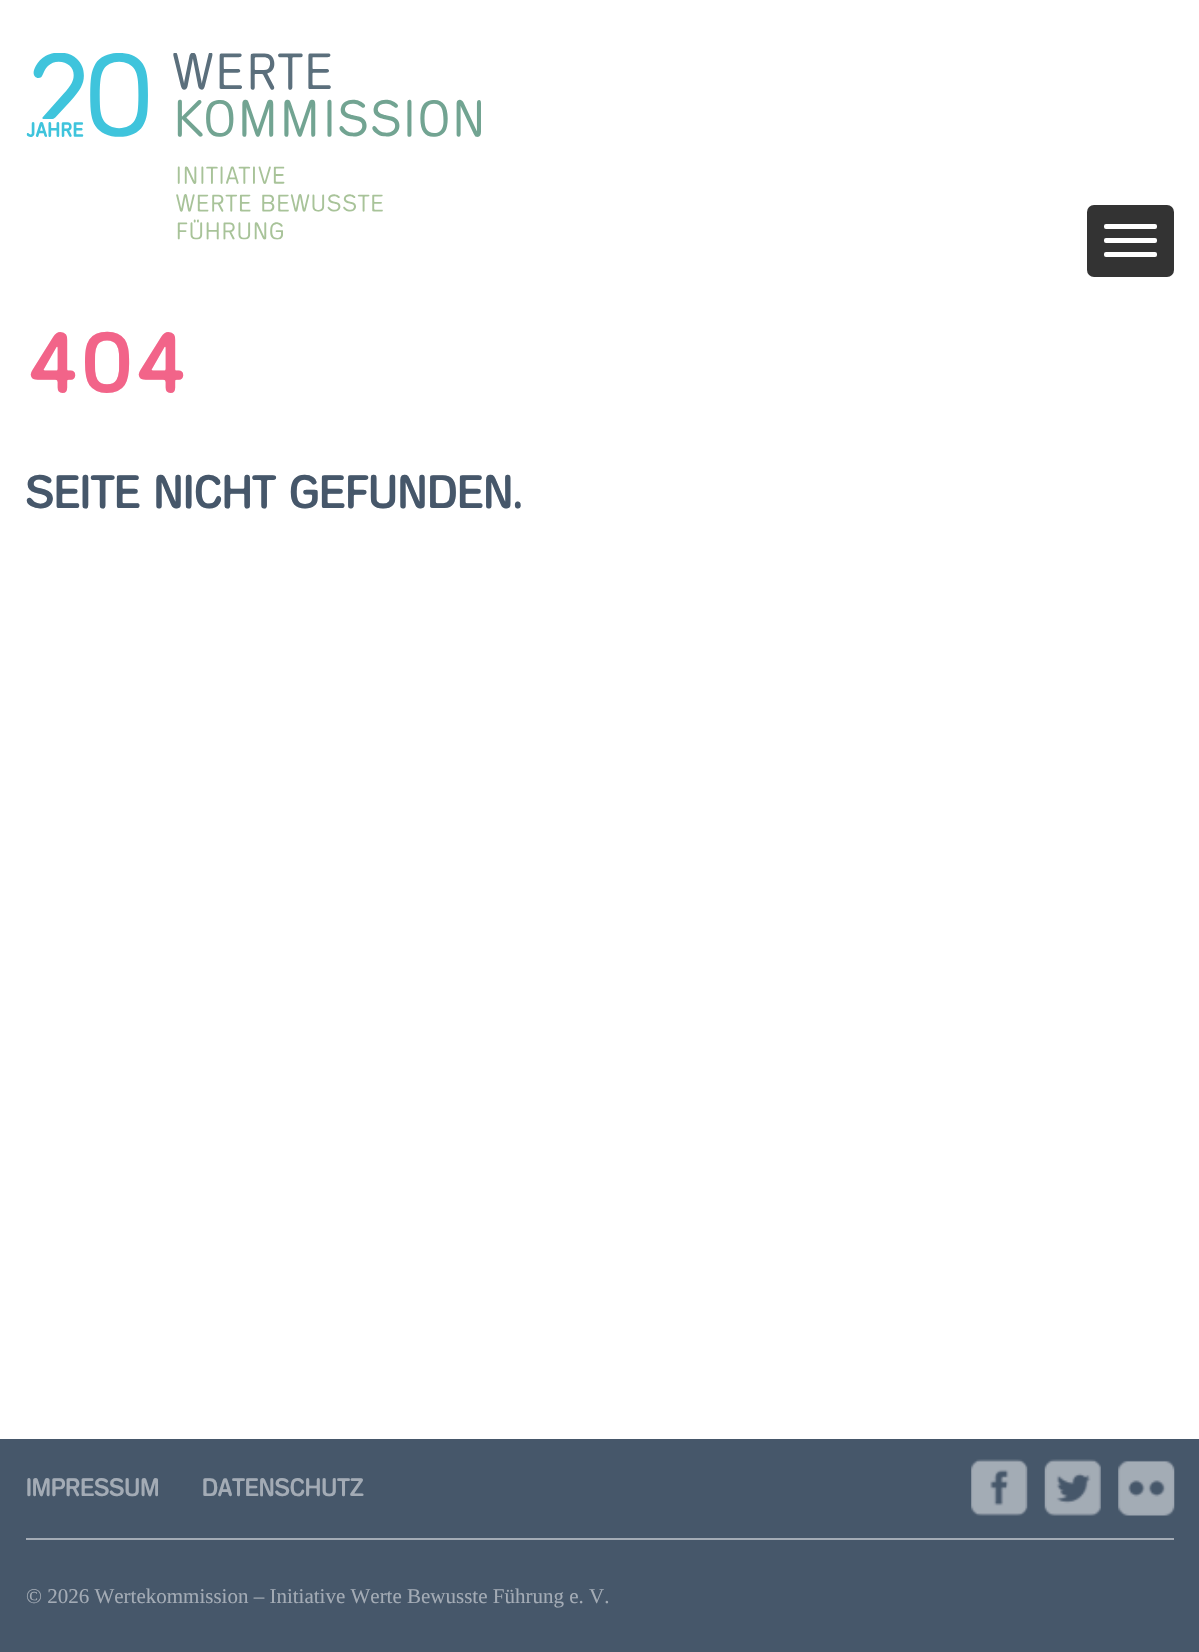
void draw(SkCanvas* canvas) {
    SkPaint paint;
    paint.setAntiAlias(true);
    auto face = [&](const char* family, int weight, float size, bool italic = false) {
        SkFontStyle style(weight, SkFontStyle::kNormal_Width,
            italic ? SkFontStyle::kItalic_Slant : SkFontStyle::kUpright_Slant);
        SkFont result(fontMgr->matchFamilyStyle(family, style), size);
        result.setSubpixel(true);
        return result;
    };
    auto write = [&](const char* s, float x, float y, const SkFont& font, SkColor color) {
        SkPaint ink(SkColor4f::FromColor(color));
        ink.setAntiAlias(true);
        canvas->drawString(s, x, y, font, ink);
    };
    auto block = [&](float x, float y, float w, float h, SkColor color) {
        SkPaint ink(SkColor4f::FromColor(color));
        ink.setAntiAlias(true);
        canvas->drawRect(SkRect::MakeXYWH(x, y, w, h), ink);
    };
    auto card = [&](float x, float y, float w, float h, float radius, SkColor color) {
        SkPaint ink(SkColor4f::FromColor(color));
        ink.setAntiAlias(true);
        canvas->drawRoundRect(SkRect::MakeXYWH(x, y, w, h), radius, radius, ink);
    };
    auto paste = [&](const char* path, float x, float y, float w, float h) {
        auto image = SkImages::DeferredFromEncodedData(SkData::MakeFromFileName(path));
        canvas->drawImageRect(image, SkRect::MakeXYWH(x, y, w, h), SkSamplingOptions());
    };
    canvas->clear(SK_ColorWHITE);
    paste("pic1.png", 26, 53, 455, 187);
    card(1087, 205, 87, 72, 7, SkColorSetRGB(51, 51, 51));
    card(1104, 224, 53, 5, 2, SK_ColorWHITE);
    card(1104, 238, 53, 5, 2, SK_ColorWHITE);
    card(1104, 252, 53, 5, 2, SK_ColorWHITE);
    auto kFont1 = face("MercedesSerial", 400, 82);
    write("404", 26, 392, kFont1, SkColorSetRGB(242, 100, 137));
    auto kFont2 = face("MercedesSerial", 400, 45.5f);
    write("SEITE NICHT GEFUNDEN.", 26, 508, kFont2, SkColorSetRGB(70, 87, 106));
    block(0, 1439, 1199, 213, SkColorSetRGB(70, 87, 106));
    auto kFont3 = face("MercedesSerial", 400, 24.5f);
    write("IMPRESSUM", 26, 1496, kFont3, SkColorSetRGB(163, 171, 181));
    write("DATENSCHUTZ", 202, 1496, kFont3, SkColorSetRGB(163, 171, 181));
    paste("pic2.png", 971, 1459, 57, 57);
    paste("pic3.png", 1044, 1459, 57, 57);
    paste("pic4.png", 1118, 1460, 57, 56);
    block(26, 1538, 1148, 2, SkColorSetRGB(163, 171, 181));
    auto kFont4 = face("Liberation Serif", 400, 21);
    write("© 2026 Wertekommission – Initiative Werte Bewusste Führung e. V.", 26, 1603, kFont4, SkColorSetRGB(163, 171, 181));
}
